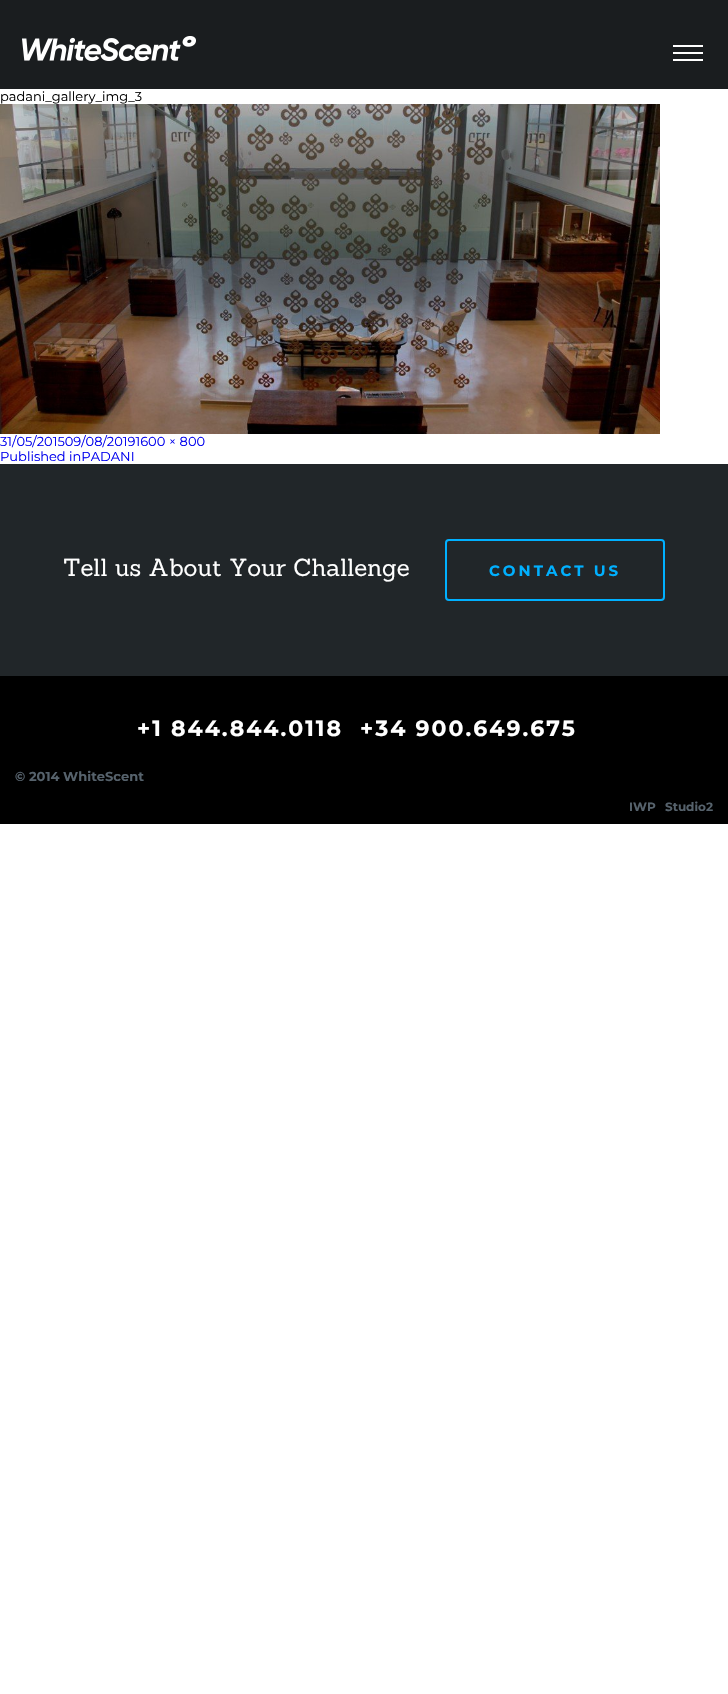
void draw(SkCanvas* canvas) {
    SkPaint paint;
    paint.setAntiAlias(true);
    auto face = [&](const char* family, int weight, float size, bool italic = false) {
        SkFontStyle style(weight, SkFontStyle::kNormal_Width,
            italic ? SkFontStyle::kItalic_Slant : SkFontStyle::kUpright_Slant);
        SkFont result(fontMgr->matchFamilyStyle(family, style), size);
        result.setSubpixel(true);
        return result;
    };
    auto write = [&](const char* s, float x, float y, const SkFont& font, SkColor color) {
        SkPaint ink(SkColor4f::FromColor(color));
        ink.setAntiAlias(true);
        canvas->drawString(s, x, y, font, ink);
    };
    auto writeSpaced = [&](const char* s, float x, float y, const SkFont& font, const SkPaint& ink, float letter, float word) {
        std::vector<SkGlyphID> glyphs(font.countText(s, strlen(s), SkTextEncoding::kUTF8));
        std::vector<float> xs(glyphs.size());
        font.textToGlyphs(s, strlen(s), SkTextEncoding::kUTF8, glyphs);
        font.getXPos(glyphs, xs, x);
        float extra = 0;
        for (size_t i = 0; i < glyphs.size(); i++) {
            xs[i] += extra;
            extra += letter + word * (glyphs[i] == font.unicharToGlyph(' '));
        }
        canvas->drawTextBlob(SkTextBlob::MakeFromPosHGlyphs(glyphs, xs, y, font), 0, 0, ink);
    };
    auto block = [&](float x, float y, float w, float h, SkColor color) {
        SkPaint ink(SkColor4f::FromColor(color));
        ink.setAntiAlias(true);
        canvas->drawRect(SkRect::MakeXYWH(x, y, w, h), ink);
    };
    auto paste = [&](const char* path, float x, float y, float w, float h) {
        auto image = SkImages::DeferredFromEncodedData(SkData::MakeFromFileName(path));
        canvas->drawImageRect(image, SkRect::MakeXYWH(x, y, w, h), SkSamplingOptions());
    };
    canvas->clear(SK_ColorWHITE);
    block(0, 0, 728, 89, SkColorSetRGB(26, 29, 31));
    paste("pic1.png", 22, 36, 174, 25);
    block(673, 52, 30, 2, SK_ColorWHITE);
    block(673, 45, 30, 2, SK_ColorWHITE);
    block(673, 59, 30, 2, SK_ColorWHITE);
    auto kFont1 = face("Montserrat", 400, 13);
    write("padani_gallery_img_3", 0, 101, kFont1, SkColorSetRGB(1, 1, 1));
    paste("pic2.png", 0, 104, 660, 330);
    write("31/05/201509/08/20191600 × 800", 0, 446, kFont1, SkColorSetRGB(0, 0, 238));
    write("Published inPADANI", 0, 461, kFont1, SkColorSetRGB(0, 0, 238));
    block(0, 464, 728, 212, SkColorSetRGB(33, 38, 41));
    auto kFont2 = face("Sanchez", 400, 24);
    write("Tell us About Your Challenge", 63, 576, kFont2, SK_ColorWHITE);
    paint.setStyle(SkPaint::kStroke_Style);
    paint.setStrokeWidth(2);
    paint.setColor(SkColorSetRGB(0, 176, 255));
    canvas->drawRoundRect(SkRect::MakeXYWH(446, 540, 218, 60), 3, 3, paint);
    auto kFont3 = face("Montserrat", 700, 15);
    paint.setStyle(SkPaint::kFill_Style);
    writeSpaced("CONTACT US", 489, 576, kFont3, paint, 3, 0);
    block(0, 676, 728, 148, SK_ColorBLACK);
    auto kFont4 = face("Montserrat", 700, 22);
    paint.setColor(SK_ColorWHITE);
    writeSpaced("+1 844.844.0118", 137, 736, kFont4, paint, 2, 0);
    writeSpaced("+34 900.649.675", 360, 736, kFont4, paint, 2, 0);
    auto kFont5 = face("Montserrat", 700, 13);
    write("© 2014 WhiteScent", 15, 781, kFont5, SkColorSetRGB(86, 98, 108));
    auto kFont6 = face("Montserrat", 700, 12);
    write("IWP", 629, 811, kFont6, SkColorSetRGB(86, 98, 108));
    write("Studio2", 665, 811, kFont6, SkColorSetRGB(86, 98, 108));
}
